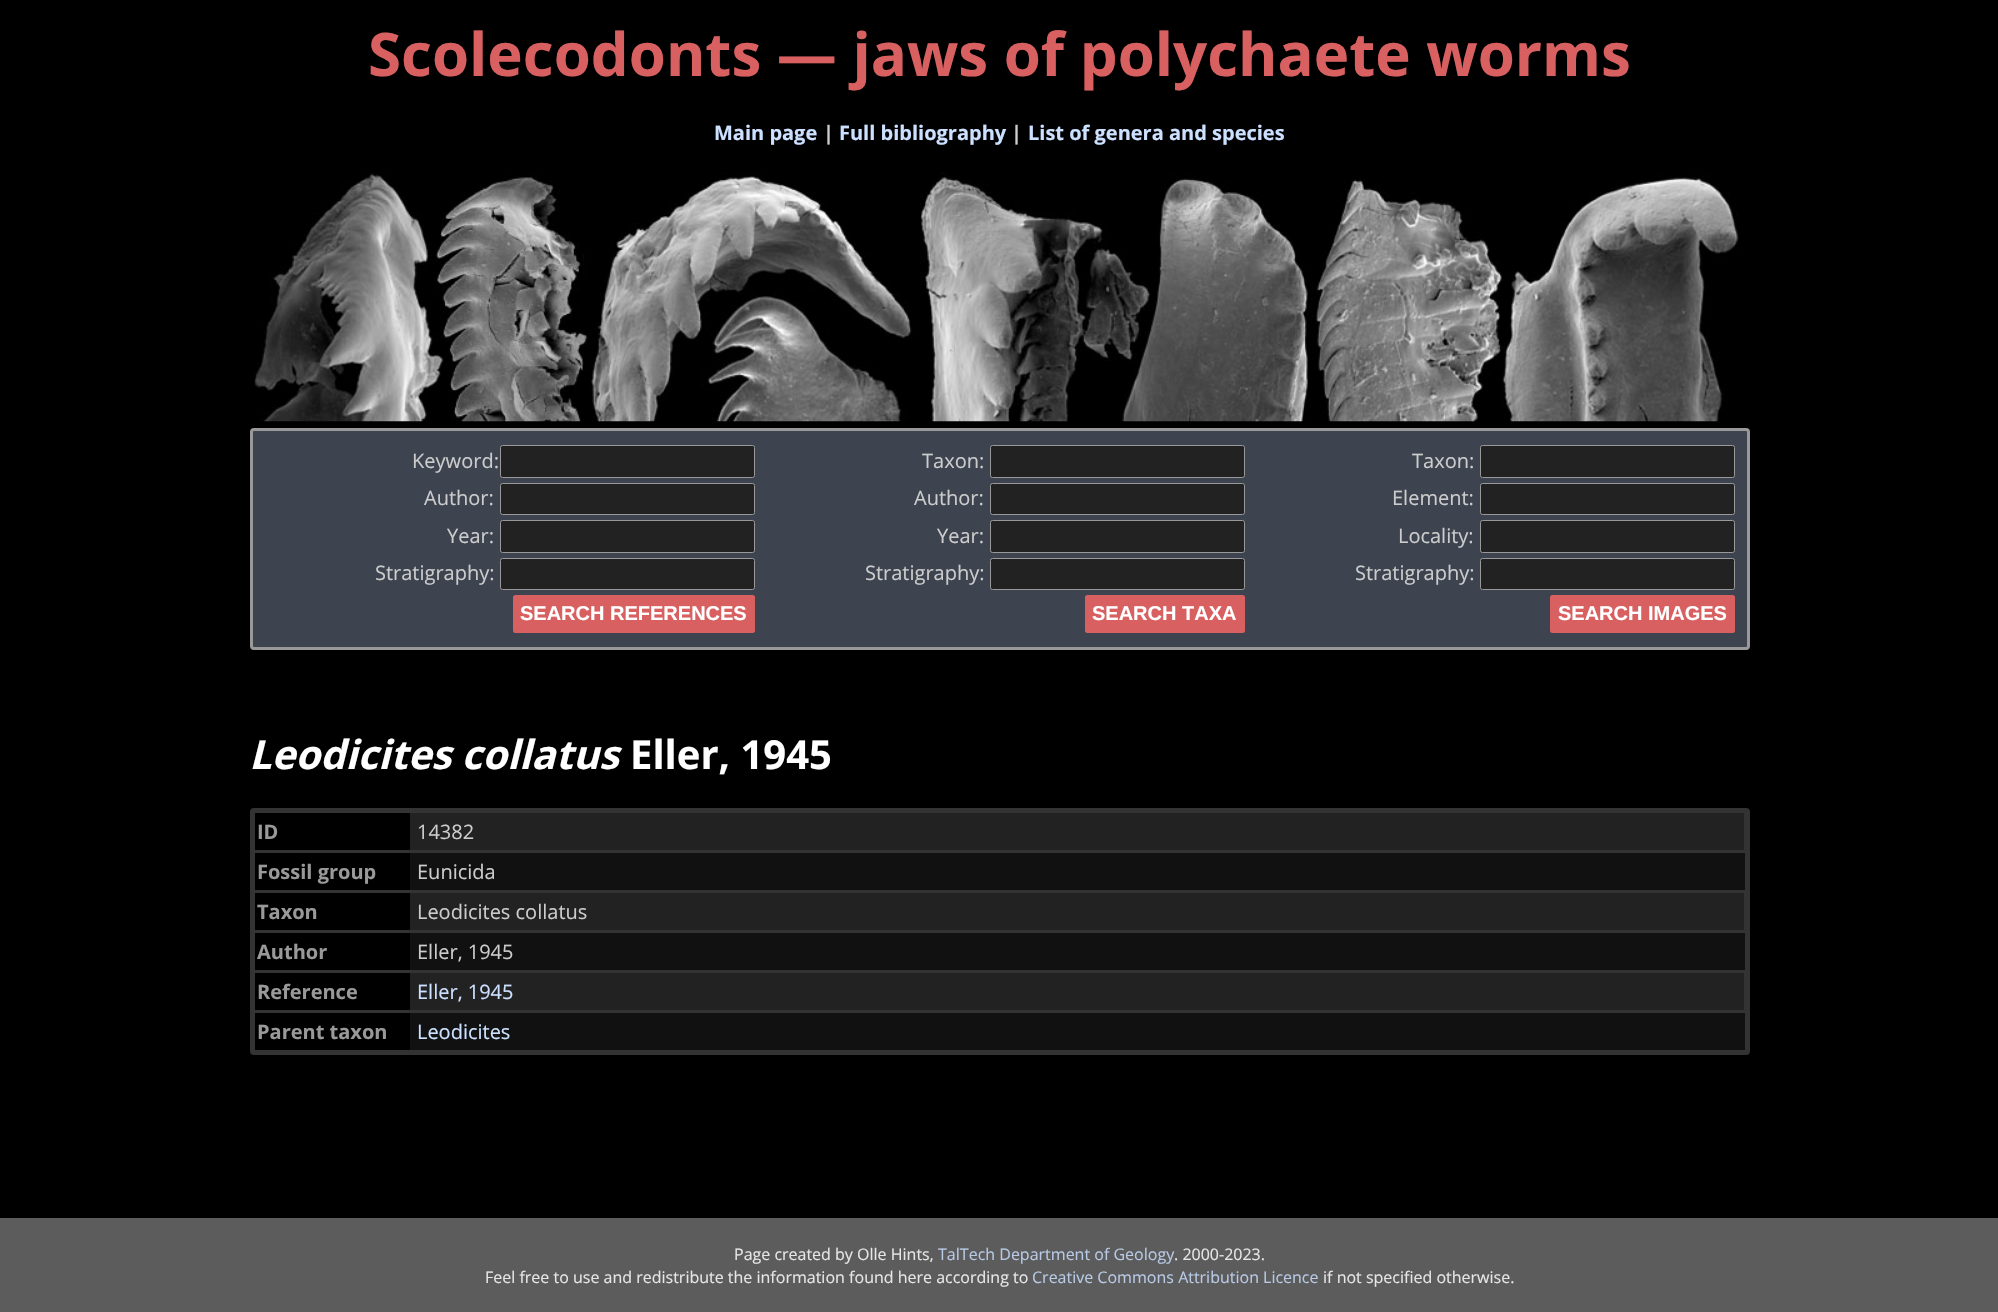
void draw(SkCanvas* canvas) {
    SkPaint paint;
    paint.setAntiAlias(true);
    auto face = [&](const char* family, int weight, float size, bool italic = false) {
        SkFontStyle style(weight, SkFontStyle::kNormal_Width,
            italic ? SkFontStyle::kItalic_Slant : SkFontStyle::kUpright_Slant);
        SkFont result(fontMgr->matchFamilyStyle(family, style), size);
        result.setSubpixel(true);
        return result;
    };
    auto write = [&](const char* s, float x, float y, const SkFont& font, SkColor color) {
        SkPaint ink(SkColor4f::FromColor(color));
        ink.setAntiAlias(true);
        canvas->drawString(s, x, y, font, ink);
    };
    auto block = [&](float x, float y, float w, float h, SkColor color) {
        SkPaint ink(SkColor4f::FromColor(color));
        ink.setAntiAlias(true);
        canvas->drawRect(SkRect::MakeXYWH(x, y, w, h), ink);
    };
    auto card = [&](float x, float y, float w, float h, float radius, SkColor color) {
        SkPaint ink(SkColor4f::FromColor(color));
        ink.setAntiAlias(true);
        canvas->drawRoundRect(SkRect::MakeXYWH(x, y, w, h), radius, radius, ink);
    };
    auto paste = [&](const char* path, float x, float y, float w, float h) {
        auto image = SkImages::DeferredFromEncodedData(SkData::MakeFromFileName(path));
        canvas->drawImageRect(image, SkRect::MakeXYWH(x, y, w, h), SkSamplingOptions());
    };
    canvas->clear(SK_ColorBLACK);
    auto kFont1 = face("Open Sans", 700, 60);
    write("Scolecodonts — jaws of polychaete worms", 368, 76, kFont1, SkColorSetRGB(216, 96, 96));
    auto kFont2 = face("Open Sans", 700, 20);
    write("Main page", 714, 140, kFont2, SkColorSetRGB(204, 224, 255));
    write("|", 823, 140, kFont2, SkColorSetRGB(204, 204, 204));
    write("Full bibliography", 839, 140, kFont2, SkColorSetRGB(204, 224, 255));
    write("|", 1011, 140, kFont2, SkColorSetRGB(204, 204, 204));
    write("List of genera and species", 1028, 140, kFont2, SkColorSetRGB(204, 224, 255));
    paste("pic1.png", 254, 171, 1485, 251);
    paint.setColor(SkColorSetRGB(61, 68, 80));
    canvas->drawRoundRect(SkRect::MakeXYWH(251.5f, 429.5f, 1497, 219), 2.5f, 2.5f, paint);
    paint.setStyle(SkPaint::kStroke_Style);
    paint.setStrokeWidth(3);
    paint.setColor(SkColorSetRGB(153, 153, 153));
    canvas->drawRoundRect(SkRect::MakeXYWH(251.5f, 429.5f, 1497, 219), 2.5f, 2.5f, paint);
    auto kFont3 = face("Open Sans", 400, 20);
    write("Keyword:", 412, 468, kFont3, SkColorSetRGB(204, 204, 204));
    paint.setStyle(SkPaint::kFill_Style);
    paint.setColor(SkColorSetRGB(34, 34, 34));
    canvas->drawRoundRect(SkRect::MakeXYWH(500.5f, 445.5f, 254, 32), 2, 2, paint);
    paint.setStyle(SkPaint::kStroke_Style);
    paint.setStrokeWidth(1);
    paint.setColor(SkColorSetRGB(153, 153, 153));
    canvas->drawRoundRect(SkRect::MakeXYWH(500.5f, 445.5f, 254, 32), 2, 2, paint);
    write("Author:", 424, 505, kFont3, SkColorSetRGB(204, 204, 204));
    paint.setStyle(SkPaint::kFill_Style);
    paint.setColor(SkColorSetRGB(34, 34, 34));
    canvas->drawRoundRect(SkRect::MakeXYWH(500.5f, 483.5f, 254, 31), 2, 2, paint);
    paint.setStyle(SkPaint::kStroke_Style);
    paint.setColor(SkColorSetRGB(153, 153, 153));
    canvas->drawRoundRect(SkRect::MakeXYWH(500.5f, 483.5f, 254, 31), 2, 2, paint);
    write("Year:", 447, 543, kFont3, SkColorSetRGB(204, 204, 204));
    paint.setStyle(SkPaint::kFill_Style);
    paint.setColor(SkColorSetRGB(34, 34, 34));
    canvas->drawRoundRect(SkRect::MakeXYWH(500.5f, 520.5f, 254, 32), 2, 2, paint);
    paint.setStyle(SkPaint::kStroke_Style);
    paint.setColor(SkColorSetRGB(153, 153, 153));
    canvas->drawRoundRect(SkRect::MakeXYWH(500.5f, 520.5f, 254, 32), 2, 2, paint);
    write("Stratigraphy:", 375, 580, kFont3, SkColorSetRGB(204, 204, 204));
    paint.setStyle(SkPaint::kFill_Style);
    paint.setColor(SkColorSetRGB(34, 34, 34));
    canvas->drawRoundRect(SkRect::MakeXYWH(500.5f, 558.5f, 254, 31), 2, 2, paint);
    paint.setStyle(SkPaint::kStroke_Style);
    paint.setColor(SkColorSetRGB(153, 153, 153));
    canvas->drawRoundRect(SkRect::MakeXYWH(500.5f, 558.5f, 254, 31), 2, 2, paint);
    card(513, 595, 242, 38, 2.5f, SkColorSetRGB(216, 96, 96));
    auto kFont4 = face("Liberation Sans", 700, 20);
    write("SEARCH REFERENCES", 520, 620, kFont4, SK_ColorWHITE);
    write("Taxon:", 922, 468, kFont3, SkColorSetRGB(204, 204, 204));
    paint.setStyle(SkPaint::kFill_Style);
    paint.setColor(SkColorSetRGB(34, 34, 34));
    canvas->drawRoundRect(SkRect::MakeXYWH(990.5f, 445.5f, 254, 32), 2, 2, paint);
    paint.setStyle(SkPaint::kStroke_Style);
    paint.setColor(SkColorSetRGB(153, 153, 153));
    canvas->drawRoundRect(SkRect::MakeXYWH(990.5f, 445.5f, 254, 32), 2, 2, paint);
    write("Author:", 914, 505, kFont3, SkColorSetRGB(204, 204, 204));
    paint.setStyle(SkPaint::kFill_Style);
    paint.setColor(SkColorSetRGB(34, 34, 34));
    canvas->drawRoundRect(SkRect::MakeXYWH(990.5f, 483.5f, 254, 31), 2, 2, paint);
    paint.setStyle(SkPaint::kStroke_Style);
    paint.setColor(SkColorSetRGB(153, 153, 153));
    canvas->drawRoundRect(SkRect::MakeXYWH(990.5f, 483.5f, 254, 31), 2, 2, paint);
    write("Year:", 937, 543, kFont3, SkColorSetRGB(204, 204, 204));
    paint.setStyle(SkPaint::kFill_Style);
    paint.setColor(SkColorSetRGB(34, 34, 34));
    canvas->drawRoundRect(SkRect::MakeXYWH(990.5f, 520.5f, 254, 32), 2, 2, paint);
    paint.setStyle(SkPaint::kStroke_Style);
    paint.setColor(SkColorSetRGB(153, 153, 153));
    canvas->drawRoundRect(SkRect::MakeXYWH(990.5f, 520.5f, 254, 32), 2, 2, paint);
    write("Stratigraphy:", 865, 580, kFont3, SkColorSetRGB(204, 204, 204));
    paint.setStyle(SkPaint::kFill_Style);
    paint.setColor(SkColorSetRGB(34, 34, 34));
    canvas->drawRoundRect(SkRect::MakeXYWH(990.5f, 558.5f, 254, 31), 2, 2, paint);
    paint.setStyle(SkPaint::kStroke_Style);
    paint.setColor(SkColorSetRGB(153, 153, 153));
    canvas->drawRoundRect(SkRect::MakeXYWH(990.5f, 558.5f, 254, 31), 2, 2, paint);
    card(1085, 595, 160, 38, 2.5f, SkColorSetRGB(216, 96, 96));
    write("SEARCH TAXA", 1092, 620, kFont4, SK_ColorWHITE);
    write("Taxon:", 1412, 468, kFont3, SkColorSetRGB(204, 204, 204));
    paint.setStyle(SkPaint::kFill_Style);
    paint.setColor(SkColorSetRGB(34, 34, 34));
    canvas->drawRoundRect(SkRect::MakeXYWH(1480.5f, 445.5f, 254, 32), 2, 2, paint);
    paint.setStyle(SkPaint::kStroke_Style);
    paint.setColor(SkColorSetRGB(153, 153, 153));
    canvas->drawRoundRect(SkRect::MakeXYWH(1480.5f, 445.5f, 254, 32), 2, 2, paint);
    write("Element:", 1392, 505, kFont3, SkColorSetRGB(204, 204, 204));
    paint.setStyle(SkPaint::kFill_Style);
    paint.setColor(SkColorSetRGB(34, 34, 34));
    canvas->drawRoundRect(SkRect::MakeXYWH(1480.5f, 483.5f, 254, 31), 2, 2, paint);
    paint.setStyle(SkPaint::kStroke_Style);
    paint.setColor(SkColorSetRGB(153, 153, 153));
    canvas->drawRoundRect(SkRect::MakeXYWH(1480.5f, 483.5f, 254, 31), 2, 2, paint);
    write("Locality:", 1398, 543, kFont3, SkColorSetRGB(204, 204, 204));
    paint.setStyle(SkPaint::kFill_Style);
    paint.setColor(SkColorSetRGB(34, 34, 34));
    canvas->drawRoundRect(SkRect::MakeXYWH(1480.5f, 520.5f, 254, 32), 2, 2, paint);
    paint.setStyle(SkPaint::kStroke_Style);
    paint.setColor(SkColorSetRGB(153, 153, 153));
    canvas->drawRoundRect(SkRect::MakeXYWH(1480.5f, 520.5f, 254, 32), 2, 2, paint);
    write("Stratigraphy:", 1355, 580, kFont3, SkColorSetRGB(204, 204, 204));
    paint.setStyle(SkPaint::kFill_Style);
    paint.setColor(SkColorSetRGB(34, 34, 34));
    canvas->drawRoundRect(SkRect::MakeXYWH(1480.5f, 558.5f, 254, 31), 2, 2, paint);
    paint.setStyle(SkPaint::kStroke_Style);
    paint.setColor(SkColorSetRGB(153, 153, 153));
    canvas->drawRoundRect(SkRect::MakeXYWH(1480.5f, 558.5f, 254, 31), 2, 2, paint);
    card(1550, 595, 185, 38, 2.5f, SkColorSetRGB(216, 96, 96));
    write("SEARCH IMAGES", 1558, 620, kFont4, SK_ColorWHITE);
    auto kFont5 = face("Open Sans", 700, 40, true);
    write("Leodicites collatus", 249, 769, kFont5, SK_ColorWHITE);
    auto kFont6 = face("Open Sans", 700, 40);
    write("Eller, 1945", 630, 769, kFont6, SK_ColorWHITE);
    card(250, 808, 1500, 247, 4, SkColorSetRGB(51, 51, 51));
    block(410, 813, 1334, 37, SkColorSetRGB(34, 34, 34));
    block(255, 813, 155, 37, SK_ColorBLACK);
    write("ID", 257, 839, kFont2, SkColorSetRGB(153, 153, 153));
    write("14382", 417, 839, kFont3, SkColorSetRGB(204, 204, 204));
    block(410, 853, 1335, 37, SkColorSetRGB(17, 17, 17));
    block(255, 853, 155, 37, SK_ColorBLACK);
    write("Fossil group", 257, 879, kFont2, SkColorSetRGB(153, 153, 153));
    write("Eunicida", 417, 879, kFont3, SkColorSetRGB(204, 204, 204));
    block(410, 893, 1334, 37, SkColorSetRGB(34, 34, 34));
    block(255, 893, 155, 37, SK_ColorBLACK);
    write("Taxon", 257, 919, kFont2, SkColorSetRGB(153, 153, 153));
    write("Leodicites collatus", 417, 919, kFont3, SkColorSetRGB(204, 204, 204));
    block(410, 933, 1335, 37, SkColorSetRGB(17, 17, 17));
    block(255, 933, 155, 37, SK_ColorBLACK);
    write("Author", 257, 959, kFont2, SkColorSetRGB(153, 153, 153));
    write("Eller, 1945", 417, 959, kFont3, SkColorSetRGB(204, 204, 204));
    block(410, 973, 1334, 37, SkColorSetRGB(34, 34, 34));
    block(255, 973, 155, 37, SK_ColorBLACK);
    write("Reference", 257, 999, kFont2, SkColorSetRGB(153, 153, 153));
    write("Eller, 1945", 417, 999, kFont3, SkColorSetRGB(204, 224, 255));
    block(410, 1013, 1335, 37, SkColorSetRGB(17, 17, 17));
    block(255, 1013, 155, 37, SK_ColorBLACK);
    write("Parent taxon", 257, 1039, kFont2, SkColorSetRGB(153, 153, 153));
    write("Leodicites", 417, 1039, kFont3, SkColorSetRGB(204, 224, 255));
    block(0, 1218, 1998, 94, SkColorSetRGB(92, 92, 92));
    auto kFont7 = face("Open Sans", 400, 16);
    write("Page created by Olle Hints,", 734, 1260, kFont7, SkColorSetRGB(230, 230, 230));
    write("TalTech Department of Geology", 938, 1260, kFont7, SkColorSetRGB(184, 202, 230));
    write(". 2000-2023.", 1174, 1260, kFont7, SkColorSetRGB(230, 230, 230));
    write("Feel free to use and redistribute the information found here according to", 485, 1283, kFont7, SkColorSetRGB(230, 230, 230));
    write("Creative Commons Attribution Licence", 1032, 1283, kFont7, SkColorSetRGB(184, 202, 230));
    write("if not specified otherwise.", 1323, 1283, kFont7, SkColorSetRGB(230, 230, 230));
}
